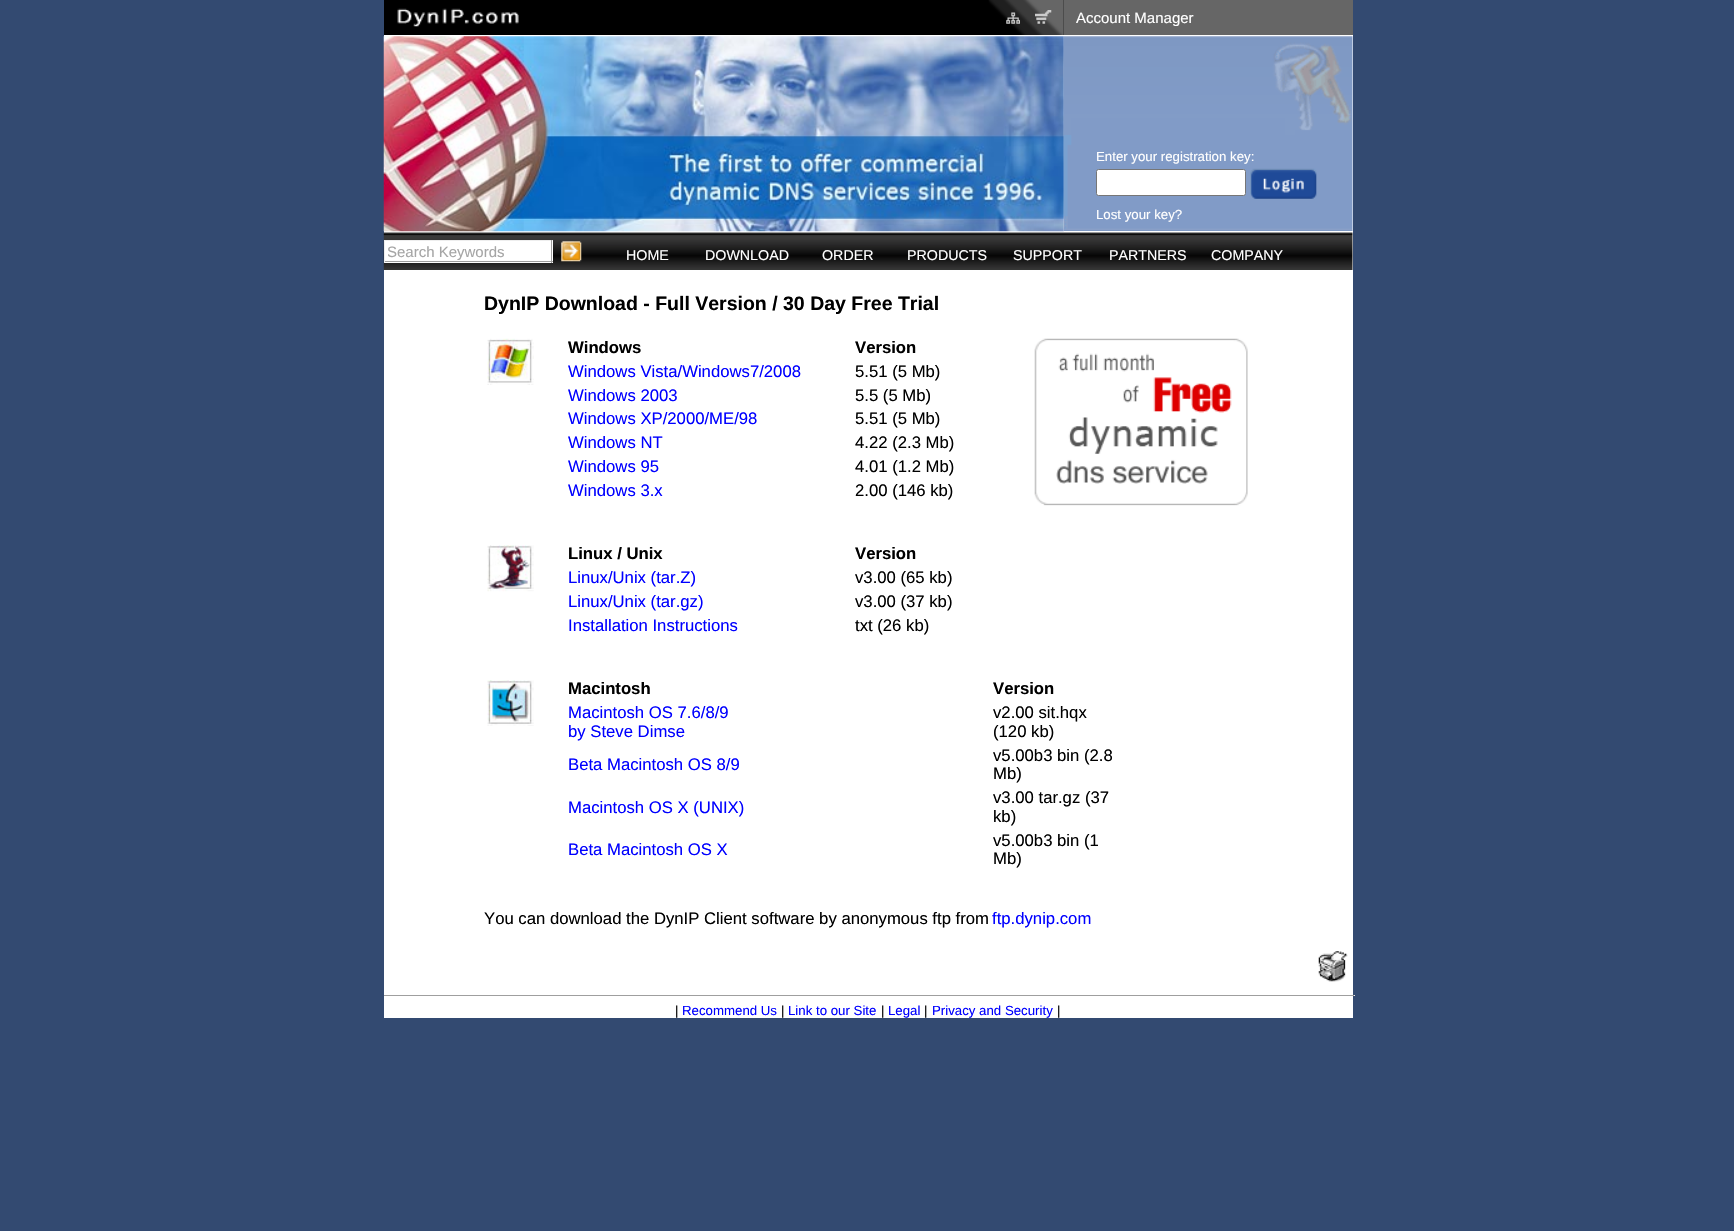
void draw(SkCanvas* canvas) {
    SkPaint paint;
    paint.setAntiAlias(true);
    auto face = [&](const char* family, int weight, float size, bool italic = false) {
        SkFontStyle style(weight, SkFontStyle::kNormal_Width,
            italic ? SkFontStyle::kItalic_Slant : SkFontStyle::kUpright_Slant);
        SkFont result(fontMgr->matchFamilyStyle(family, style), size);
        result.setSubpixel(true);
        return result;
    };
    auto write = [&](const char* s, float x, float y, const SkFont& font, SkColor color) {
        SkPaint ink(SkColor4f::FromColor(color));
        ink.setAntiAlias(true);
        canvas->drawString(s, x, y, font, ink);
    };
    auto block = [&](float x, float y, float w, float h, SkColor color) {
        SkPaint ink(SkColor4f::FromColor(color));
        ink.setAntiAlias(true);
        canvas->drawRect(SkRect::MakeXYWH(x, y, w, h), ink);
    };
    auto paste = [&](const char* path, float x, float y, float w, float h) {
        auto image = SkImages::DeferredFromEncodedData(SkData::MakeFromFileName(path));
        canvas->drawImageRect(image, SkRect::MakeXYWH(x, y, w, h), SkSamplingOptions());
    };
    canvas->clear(SkColorSetRGB(51, 74, 113));
    block(384, 35, 969, 983, SK_ColorWHITE);
    block(384, 0, 680, 35, SK_ColorBLACK);
    paste("pic1.png", 988, 0, 76, 35);
    paste("pic2.png", 397, 8, 122, 19);
    paste("pic3.png", 1006, 12, 14, 12);
    paste("pic4.png", 1035, 10, 17, 14);
    block(1064, 0, 289, 35, SkColorSetRGB(102, 102, 102));
    auto kFont1 = face("Liberation Sans", 400, 15);
    write("Account Manager", 1076, 23, kFont1, SK_ColorWHITE);
    paste("pic6.png", 1063, 36, 290, 195);
    paste("pic5.png", 383, 36, 681, 196);
    auto kFont2 = face("Liberation Sans", 400, 13.25f);
    write("Enter your registration key:", 1096, 161, kFont2, SK_ColorWHITE);
    paint.setColor(SK_ColorWHITE);
    canvas->drawRoundRect(SkRect::MakeXYWH(1096.5f, 169.5f, 149, 26), 2, 2, paint);
    paint.setStyle(SkPaint::kStroke_Style);
    paint.setStrokeWidth(1);
    paint.setColor(SkColorSetRGB(118, 118, 118));
    canvas->drawRoundRect(SkRect::MakeXYWH(1096.5f, 169.5f, 149, 26), 2, 2, paint);
    paste("pic7.png", 1250, 168, 67, 31);
    write("Lost your key?", 1096, 219, kFont2, SK_ColorWHITE);
    paste("pic8.png", 383, 232, 970, 38);
    block(385, 241, 168, 22, SK_ColorWHITE);
    block(384, 240, 169, 1, SkColorSetRGB(238, 238, 238));
    block(551, 240, 1, 23, SkColorSetRGB(159, 159, 159));
    block(384, 261, 169, 1, SkColorSetRGB(159, 159, 159));
    block(384, 240, 1, 23, SkColorSetRGB(238, 238, 238));
    canvas->save();
    canvas->clipRect(SkRect::MakeXYWH(388, 243, 161, 17));
    write("Search Keywords", 387, 257, kFont1, SkColorSetRGB(165, 165, 165));
    canvas->restore();
    paste("pic9.png", 561, 240, 21, 22);
    auto kFont3 = face("Liberation Sans", 400, 14.25f);
    write("HOME", 626, 260, kFont3, SK_ColorWHITE);
    write("DOWNLOAD", 705, 260, kFont3, SK_ColorWHITE);
    write("ORDER", 822, 260, kFont3, SK_ColorWHITE);
    write("PRODUCTS", 907, 260, kFont3, SK_ColorWHITE);
    write("SUPPORT", 1013, 260, kFont3, SK_ColorWHITE);
    write("PARTNERS", 1109, 260, kFont3, SK_ColorWHITE);
    write("COMPANY", 1211, 260, kFont3, SK_ColorWHITE);
    auto kFont4 = face("Liberation Sans", 700, 19.5f);
    write("DynIP Download - Full Version / 30 Day Free Trial", 484, 310, kFont4, SK_ColorBLACK);
    paste("pic10.png", 487, 338, 47, 47);
    auto kFont5 = face("Liberation Sans", 700, 16.7f);
    write("Windows", 568, 353, kFont5, SK_ColorBLACK);
    write("Version", 855, 353, kFont5, SK_ColorBLACK);
    auto kFont6 = face("Liberation Sans", 400, 16.7f);
    write("Windows Vista/Windows7/2008", 568, 377, kFont6, SkColorSetRGB(0, 0, 255));
    write("5.51 (5 Mb)", 855, 377, kFont6, SK_ColorBLACK);
    write("Windows 2003", 568, 401, kFont6, SkColorSetRGB(0, 0, 255));
    write("5.5 (5 Mb)", 855, 401, kFont6, SK_ColorBLACK);
    write("Windows XP/2000/ME/98", 568, 424, kFont6, SkColorSetRGB(0, 0, 255));
    write("5.51 (5 Mb)", 855, 424, kFont6, SK_ColorBLACK);
    write("Windows NT", 568, 448, kFont6, SkColorSetRGB(0, 0, 255));
    write("4.22 (2.3 Mb)", 855, 448, kFont6, SK_ColorBLACK);
    write("Windows 95", 568, 472, kFont6, SkColorSetRGB(0, 0, 255));
    write("4.01 (1.2 Mb)", 855, 472, kFont6, SK_ColorBLACK);
    write("Windows 3.x", 568, 496, kFont6, SkColorSetRGB(0, 0, 255));
    write("2.00 (146 kb)", 855, 496, kFont6, SK_ColorBLACK);
    paste("pic11.png", 1034, 338, 214, 168);
    paste("pic12.png", 487, 545, 47, 47);
    write("Linux / Unix", 568, 559, kFont5, SK_ColorBLACK);
    write("Version", 855, 559, kFont5, SK_ColorBLACK);
    write("Linux/Unix (tar.Z)", 568, 583, kFont6, SkColorSetRGB(0, 0, 255));
    write("v3.00 (65 kb)", 855, 583, kFont6, SK_ColorBLACK);
    write("Linux/Unix (tar.gz)", 568, 607, kFont6, SkColorSetRGB(0, 0, 255));
    write("v3.00 (37 kb)", 855, 607, kFont6, SK_ColorBLACK);
    write("Installation Instructions", 568, 631, kFont6, SkColorSetRGB(0, 0, 255));
    write("txt (26 kb)", 855, 631, kFont6, SK_ColorBLACK);
    paste("pic13.png", 487, 680, 47, 46);
    write("Macintosh", 568, 694, kFont5, SK_ColorBLACK);
    write("Version", 993, 694, kFont5, SK_ColorBLACK);
    write("Macintosh OS 7.6/8/9", 568, 718, kFont6, SkColorSetRGB(0, 0, 255));
    write("by Steve Dimse", 568, 737, kFont6, SkColorSetRGB(0, 0, 255));
    write("v2.00 sit.hqx", 993, 718, kFont6, SK_ColorBLACK);
    write("(120 kb)", 993, 737, kFont6, SK_ColorBLACK);
    write("Beta Macintosh OS 8/9", 568, 770, kFont6, SkColorSetRGB(0, 0, 255));
    write("v5.00b3 bin (2.8", 993, 761, kFont6, SK_ColorBLACK);
    write("Mb)", 993, 779, kFont6, SK_ColorBLACK);
    write("Macintosh OS X (UNIX)", 568, 813, kFont6, SkColorSetRGB(0, 0, 255));
    write("v3.00 tar.gz (37", 993, 803, kFont6, SK_ColorBLACK);
    write("kb)", 993, 822, kFont6, SK_ColorBLACK);
    write("Beta Macintosh OS X", 568, 855, kFont6, SkColorSetRGB(0, 0, 255));
    write("v5.00b3 bin (1", 993, 846, kFont6, SK_ColorBLACK);
    write("Mb)", 993, 864, kFont6, SK_ColorBLACK);
    write("You can download the DynIP Client software by anonymous ftp from", 484, 924, kFont6, SK_ColorBLACK);
    write("ftp.dynip.com", 992, 924, kFont6, SkColorSetRGB(0, 0, 255));
    paste("pic14.png", 1318, 951, 30, 31);
    block(384, 995, 971, 1, SkColorSetRGB(159, 159, 159));
    block(1354, 995, 1, 1, SkColorSetRGB(238, 238, 238));
    write("|", 675, 1015, kFont2, SK_ColorBLACK);
    write("Recommend Us", 682, 1015, kFont2, SkColorSetRGB(0, 0, 255));
    write("|", 781, 1015, kFont2, SK_ColorBLACK);
    write("Link to our Site", 788, 1015, kFont2, SkColorSetRGB(0, 0, 255));
    write("|", 881, 1015, kFont2, SK_ColorBLACK);
    write("Legal", 888, 1015, kFont2, SkColorSetRGB(0, 0, 255));
    write("|", 924, 1015, kFont2, SK_ColorBLACK);
    write("Privacy and Security", 932, 1015, kFont2, SkColorSetRGB(0, 0, 255));
    write("|", 1057, 1015, kFont2, SK_ColorBLACK);
}
